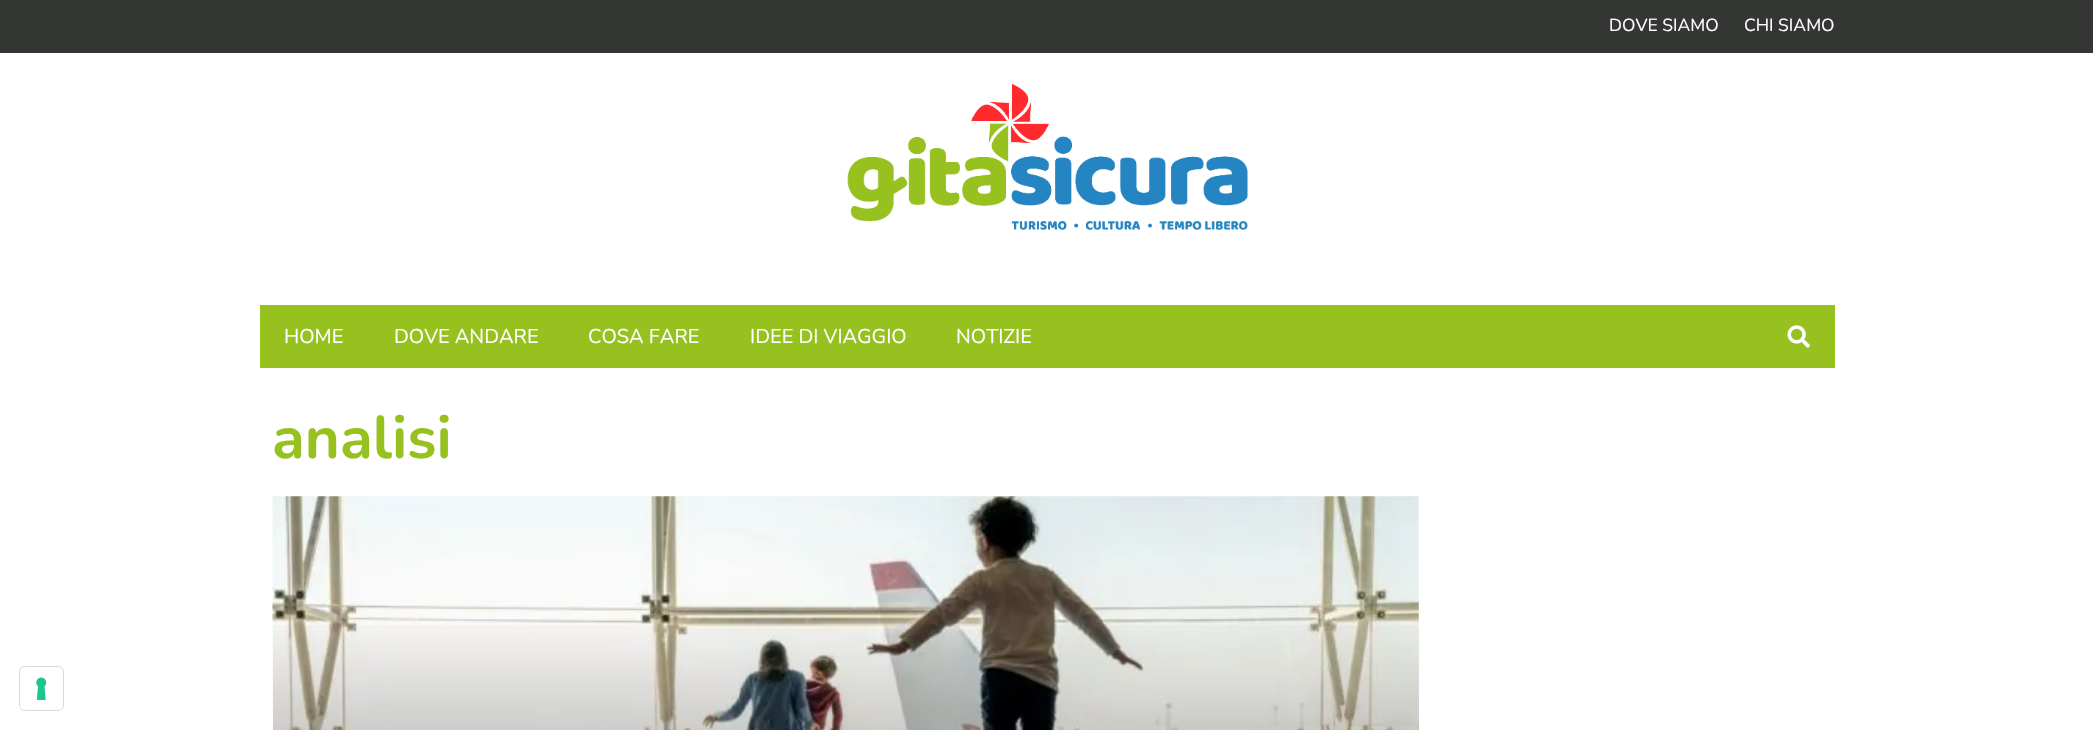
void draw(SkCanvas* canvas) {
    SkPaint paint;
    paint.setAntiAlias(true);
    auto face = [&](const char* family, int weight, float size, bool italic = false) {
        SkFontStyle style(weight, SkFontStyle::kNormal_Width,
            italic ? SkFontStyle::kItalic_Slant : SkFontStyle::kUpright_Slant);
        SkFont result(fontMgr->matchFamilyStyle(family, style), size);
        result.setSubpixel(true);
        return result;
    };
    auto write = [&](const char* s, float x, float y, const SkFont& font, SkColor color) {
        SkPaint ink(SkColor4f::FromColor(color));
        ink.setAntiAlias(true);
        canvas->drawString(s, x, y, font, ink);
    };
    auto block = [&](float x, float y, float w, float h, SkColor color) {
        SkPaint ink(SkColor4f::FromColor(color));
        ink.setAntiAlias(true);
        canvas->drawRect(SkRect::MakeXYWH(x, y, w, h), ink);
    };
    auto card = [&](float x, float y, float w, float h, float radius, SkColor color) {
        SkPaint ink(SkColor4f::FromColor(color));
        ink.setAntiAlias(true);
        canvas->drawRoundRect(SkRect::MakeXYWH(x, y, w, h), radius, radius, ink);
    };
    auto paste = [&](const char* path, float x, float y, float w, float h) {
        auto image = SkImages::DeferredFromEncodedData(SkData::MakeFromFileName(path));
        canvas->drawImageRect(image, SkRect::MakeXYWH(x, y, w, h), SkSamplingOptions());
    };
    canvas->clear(SK_ColorWHITE);
    block(0, 0, 2093, 53, SkColorSetRGB(51, 54, 51));
    auto kFont1 = face("Nunito", 400, 17.5f);
    write("DOVE SIAMO", 1609, 31, kFont1, SK_ColorWHITE);
    write("CHI SIAMO", 1744, 31, kFont1, SK_ColorWHITE);
    paste("pic1.png", 847, 83, 401, 147);
    block(260, 305, 1575, 63, SkColorSetRGB(150, 193, 31));
    auto kFont2 = face("Nunito", 400, 20);
    write("HOME", 284, 343, kFont2, SK_ColorWHITE);
    write("DOVE ANDARE", 394, 343, kFont2, SK_ColorWHITE);
    write("COSA FARE", 588, 343, kFont2, SK_ColorWHITE);
    write("IDEE DI VIAGGIO", 750, 343, kFont2, SK_ColorWHITE);
    write("NOTIZIE", 956, 343, kFont2, SK_ColorWHITE);
    paste("pic2.png", 1787, 325, 23, 23);
    auto kFont3 = face("Nunito", 700, 60);
    write("analisi", 272, 458, kFont3, SkColorSetRGB(150, 193, 31));
    paste("pic3.png", 272, 496, 1147, 234);
    {
        const SkColor colors[] = {SkColorSetARGB(0, 0, 0, 0), SkColorSetARGB(204, 0, 0, 0)};
        const float stops[] = {0.18f, 1};
        const SkPoint ends[] = {{846, 496}, {846, 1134}};
        paint.setShader(SkGradientShader::MakeLinear(ends, colors, stops, 2, SkTileMode::kClamp));
        paint.setAlpha(255);
    }
    canvas->drawRect(SkRect::MakeXYWH(273, 625, 1146, 105), paint);
    paint.setStyle(SkPaint::kStroke_Style);
    paint.setStrokeWidth(1);
    paint.setShader(nullptr);
    paint.setColor(SkColorSetRGB(217, 217, 217));
    canvas->drawRoundRect(SkRect::MakeXYWH(19.5f, 666.5f, 44, 44), 5.5f, 5.5f, paint);
    card(20, 668, 43, 42, 5, SK_ColorWHITE);
    paste("pic4.png", 36, 677, 11, 23);
}
